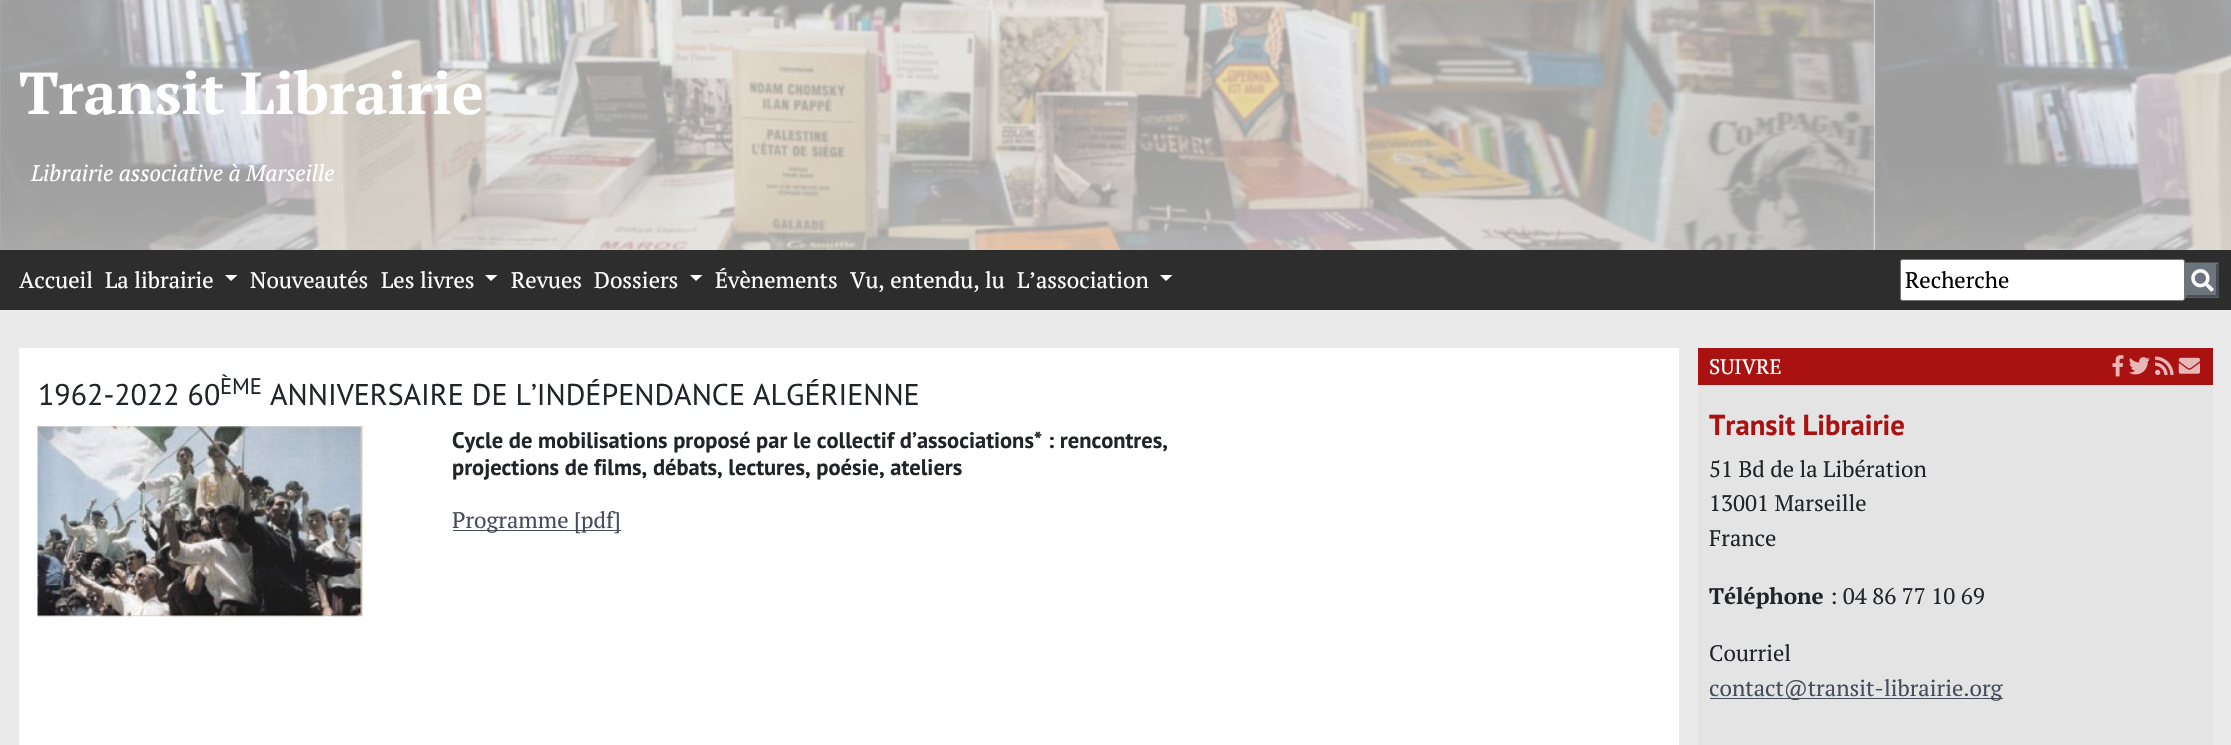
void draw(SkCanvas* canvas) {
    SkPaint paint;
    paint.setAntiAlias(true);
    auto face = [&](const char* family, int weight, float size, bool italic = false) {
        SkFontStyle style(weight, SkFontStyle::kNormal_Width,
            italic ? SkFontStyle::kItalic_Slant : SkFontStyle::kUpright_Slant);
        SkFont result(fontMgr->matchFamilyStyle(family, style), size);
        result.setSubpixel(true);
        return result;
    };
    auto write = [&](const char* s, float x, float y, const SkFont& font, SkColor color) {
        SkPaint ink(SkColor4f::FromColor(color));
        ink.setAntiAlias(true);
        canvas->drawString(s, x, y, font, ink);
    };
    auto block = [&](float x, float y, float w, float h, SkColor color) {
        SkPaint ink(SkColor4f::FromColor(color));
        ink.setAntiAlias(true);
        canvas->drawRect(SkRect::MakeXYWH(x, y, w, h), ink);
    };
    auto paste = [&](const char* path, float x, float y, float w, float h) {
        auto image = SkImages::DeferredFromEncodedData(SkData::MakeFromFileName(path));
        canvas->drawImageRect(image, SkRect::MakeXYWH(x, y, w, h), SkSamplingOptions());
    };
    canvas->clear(SkColorSetRGB(234, 234, 234));
    paste("pic1.png", 0, 0, 2231, 250);
    auto kFont1 = face("PT Serif", 700, 59);
    write("Transit Librairie", 19, 114, kFont1, SK_ColorWHITE);
    auto kFont2 = face("PT Serif", 400, 22.5f, true);
    write("Librairie associative à Marseille", 31, 181, kFont2, SK_ColorWHITE);
    block(0, 250, 2231, 60, SkColorSetRGB(45, 45, 45));
    auto kFont3 = face("PT Serif", 400, 22.5f);
    write("Accueil", 19, 288, kFont3, SK_ColorWHITE);
    write("La librairie", 105, 288, kFont3, SK_ColorWHITE);
    paint.setColor(SK_ColorWHITE);
    canvas->drawPath(SkPathBuilder().moveTo(225, 275).lineTo(237.5f, 275).lineTo(231, 281).close().detach(), paint);
    write("Nouveautés", 250, 288, kFont3, SK_ColorWHITE);
    write("Les livres", 381, 288, kFont3, SK_ColorWHITE);
    canvas->drawPath(SkPathBuilder().moveTo(485, 275).lineTo(497.5f, 275).lineTo(491, 281).close().detach(), paint);
    write("Revues", 511, 288, kFont3, SK_ColorWHITE);
    write("Dossiers", 594, 288, kFont3, SK_ColorWHITE);
    canvas->drawPath(SkPathBuilder().moveTo(690, 275).lineTo(702.5f, 275).lineTo(696, 281).close().detach(), paint);
    write("Évènements", 715, 288, kFont3, SK_ColorWHITE);
    write("Vu, entendu, lu", 850, 288, kFont3, SK_ColorWHITE);
    write("L’association", 1017, 288, kFont3, SK_ColorWHITE);
    canvas->drawPath(SkPathBuilder().moveTo(1160, 275).lineTo(1172.5f, 275).lineTo(1166, 281).close().detach(), paint);
    canvas->drawRoundRect(SkRect::MakeXYWH(1900.5f, 259.5f, 284, 41), 2, 2, paint);
    paint.setStyle(SkPaint::kStroke_Style);
    paint.setStrokeWidth(1);
    paint.setColor(SkColorSetRGB(118, 118, 118));
    canvas->drawRoundRect(SkRect::MakeXYWH(1900.5f, 259.5f, 284, 41), 2, 2, paint);
    write("Recherche", 1905, 288, kFont3, SK_ColorBLACK);
    block(2185, 263, 34, 35, SkColorSetRGB(108, 117, 125));
    paint.setStyle(SkPaint::kFill_Style);
    paint.setColor(SkColorSetRGB(108, 117, 125));
    canvas->drawPath(SkPathBuilder().moveTo(2185, 262.5f).lineTo(2219, 262.5f).lineTo(2216, 265).lineTo(2187.5f, 265).close().detach(), paint);
    paint.setColor(SkColorSetRGB(72, 78, 83));
    canvas->drawPath(SkPathBuilder().moveTo(2219, 262.5f).lineTo(2219, 297.5f).lineTo(2216, 295).lineTo(2216, 265).close().detach(), paint);
    canvas->drawPath(SkPathBuilder().moveTo(2219, 297.5f).lineTo(2185, 297.5f).lineTo(2187.5f, 295).lineTo(2216, 295).close().detach(), paint);
    paint.setColor(SkColorSetRGB(108, 117, 125));
    canvas->drawPath(SkPathBuilder().moveTo(2185, 297.5f).lineTo(2185, 262.5f).lineTo(2187.5f, 265).lineTo(2187.5f, 295).close().detach(), paint);
    paste("pic2.png", 2191, 269, 23, 23);
    block(19, 348, 1660, 397, SK_ColorWHITE);
    auto kFont4 = face("PT Sans", 400, 30);
    write("1962-2022 60", 38, 405, kFont4, SkColorSetRGB(33, 37, 41));
    auto kFont5 = face("PT Sans", 400, 22.5f);
    write("ÈME", 220, 394, kFont5, SkColorSetRGB(33, 37, 41));
    write("ANNIVERSAIRE DE L’INDÉPENDANCE ALGÉRIENNE", 270, 405, kFont4, SkColorSetRGB(33, 37, 41));
    paste("pic3.png", 37, 426, 326, 191);
    auto kFont6 = face("PT Sans", 700, 22.5f);
    write("Cycle de mobilisations proposé par le collectif d’associations* : rencontres,", 452, 448, kFont6, SkColorSetRGB(33, 37, 41));
    write("projections de films, débats, lectures, poésie, ateliers", 452, 475, kFont6, SkColorSetRGB(33, 37, 41));
    block(453, 530, 168, 1, SkColorSetRGB(69, 77, 93));
    write("Programme [pdf]", 452, 528, kFont3, SkColorSetRGB(69, 77, 93));
    block(1698, 348, 515, 37, SkColorSetRGB(170, 17, 17));
    auto kFont7 = face("PT Serif", 400, 21);
    write("SUIVRE", 1709, 374, kFont7, SK_ColorWHITE);
    paste("pic4.png", 2112, 355, 12, 22);
    paste("pic5.png", 2129, 357, 21, 18);
    paste("pic6.png", 2155, 356, 19, 20);
    paste("pic7.png", 2178, 357, 22, 17);
    block(1698, 385, 515, 360, SkColorSetRGB(229, 228, 228));
    auto kFont8 = face("PT Sans", 700, 28.75f);
    write("Transit Librairie", 1709, 435, kFont8, SkColorSetRGB(170, 17, 17));
    write("51 Bd de la Libération", 1709, 477, kFont3, SkColorSetRGB(33, 37, 41));
    write("13001 Marseille", 1709, 511, kFont3, SkColorSetRGB(33, 37, 41));
    write("France", 1709, 546, kFont3, SkColorSetRGB(33, 37, 41));
    auto kFont9 = face("PT Serif", 700, 22.5f);
    write("Téléphone", 1709, 604, kFont9, SkColorSetRGB(33, 37, 41));
    write(": 04 86 77 10 69", 1830, 604, kFont3, SkColorSetRGB(33, 37, 41));
    write("Courriel", 1709, 661, kFont3, SkColorSetRGB(33, 37, 41));
    block(1710, 698, 293, 1, SkColorSetRGB(69, 77, 93));
    write("contact@transit-librairie.org", 1709, 696, kFont3, SkColorSetRGB(69, 77, 93));
}
